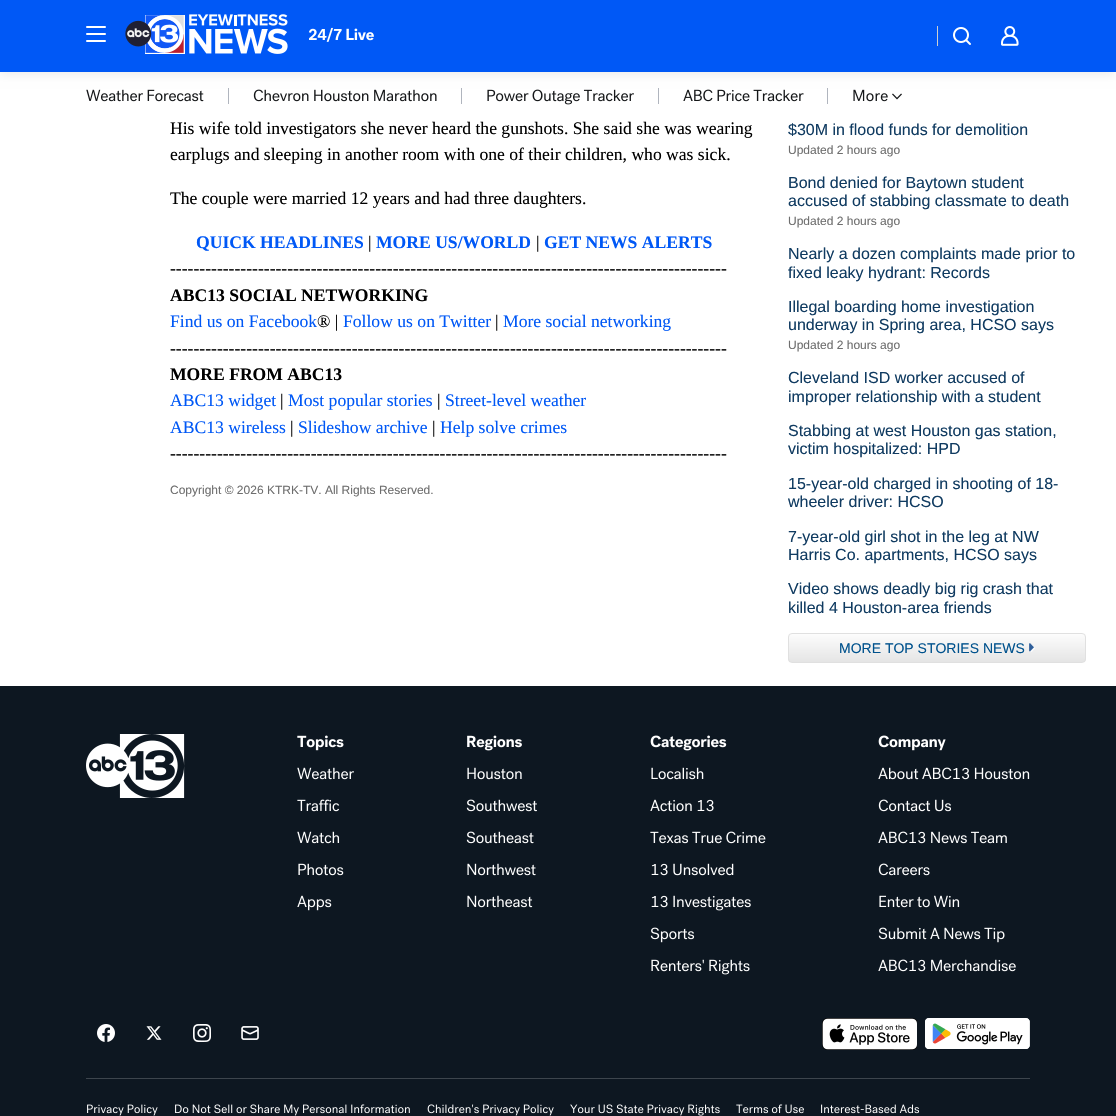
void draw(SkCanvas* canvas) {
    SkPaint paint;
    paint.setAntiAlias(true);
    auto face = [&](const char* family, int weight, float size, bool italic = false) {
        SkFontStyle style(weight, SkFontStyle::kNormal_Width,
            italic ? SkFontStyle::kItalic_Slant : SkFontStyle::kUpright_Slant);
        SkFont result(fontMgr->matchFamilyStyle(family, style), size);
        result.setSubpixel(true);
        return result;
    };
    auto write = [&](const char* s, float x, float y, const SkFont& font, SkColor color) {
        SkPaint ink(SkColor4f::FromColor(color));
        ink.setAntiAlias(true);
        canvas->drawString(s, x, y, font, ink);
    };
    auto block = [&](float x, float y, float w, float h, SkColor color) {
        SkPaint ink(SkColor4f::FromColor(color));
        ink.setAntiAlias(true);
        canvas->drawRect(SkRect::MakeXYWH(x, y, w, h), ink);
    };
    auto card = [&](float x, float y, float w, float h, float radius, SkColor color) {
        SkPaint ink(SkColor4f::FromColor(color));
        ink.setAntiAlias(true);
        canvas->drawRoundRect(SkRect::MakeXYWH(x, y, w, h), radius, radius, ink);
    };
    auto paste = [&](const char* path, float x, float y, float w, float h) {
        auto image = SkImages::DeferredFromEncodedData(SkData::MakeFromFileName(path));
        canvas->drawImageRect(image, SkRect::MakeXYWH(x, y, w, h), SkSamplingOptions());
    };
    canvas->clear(SK_ColorWHITE);
    paste("pic5.png", 86, 89, 118, 13);
    block(228, 88, 1, 16, SkColorSetRGB(176, 181, 190));
    paste("pic6.png", 253, 89, 184, 13);
    block(461, 88, 1, 16, SkColorSetRGB(176, 181, 190));
    paste("pic7.png", 487, 89, 147, 16);
    block(658, 88, 1, 16, SkColorSetRGB(176, 181, 190));
    paste("pic8.png", 683, 89, 121, 13);
    block(827, 88, 1, 16, SkColorSetRGB(176, 181, 190));
    paste("pic9.png", 853, 89, 35, 13);
    paint.setColor(SkColorSetARGB(20, 0, 0, 0));
    paint.setMaskFilter(SkMaskFilter::MakeBlur(kNormal_SkBlurStyle, 5));
    canvas->drawRect(SkRect::MakeXYWH(0, 2, 1116, 72), paint);
    paint.setMaskFilter(nullptr);
    block(0, 0, 1116, 72, SkColorSetRGB(0, 88, 246));
    card(86, 33, 20, 2, 1, SK_ColorWHITE);
    card(86, 26, 20, 2, 1, SK_ColorWHITE);
    card(86, 40, 20, 2, 1, SK_ColorWHITE);
    paste("pic1.png", 125, 14, 163, 40);
    paste("pic2.png", 308, 27, 66, 15);
    block(937, 26, 1, 20, SkColorSetRGB(206, 207, 207));
    paste("pic3.png", 953, 27, 18, 18);
    paste("pic4.png", 1001, 26, 18, 20);
    paste("pic10.png", 892, 93, 10, 7);
    auto kFont1 = face("Liberation Serif", 400, 17.6f);
    write("His wife told investigators she never heard the gunshots. She said she was wearing", 170, 134, kFont1, SK_ColorBLACK);
    write("earplugs and sleeping in another room with one of their children, who was sick.", 170, 160, kFont1, SK_ColorBLACK);
    write("The couple were married 12 years and had three daughters.", 170, 204, kFont1, SK_ColorBLACK);
    auto kFont2 = face("Liberation Serif", 700, 17.6f);
    write("QUICK HEADLINES", 196, 248, kFont2, SkColorSetRGB(0, 88, 246));
    write("|", 368, 248, kFont1, SK_ColorBLACK);
    write("MORE US/WORLD", 376, 248, kFont2, SkColorSetRGB(0, 88, 246));
    write("|", 536, 248, kFont1, SK_ColorBLACK);
    write("GET NEWS ALERTS", 544, 248, kFont2, SkColorSetRGB(0, 88, 246));
    write("-----------------------------------------------------------------------------------------------", 170, 274, kFont1, SK_ColorBLACK);
    write("ABC13 SOCIAL NETWORKING", 170, 301, kFont2, SK_ColorBLACK);
    write("Find us on Facebook", 170, 327, kFont1, SkColorSetRGB(0, 88, 246));
    write("® |", 317, 327, kFont1, SK_ColorBLACK);
    write("Follow us on Twitter", 343, 327, kFont1, SkColorSetRGB(0, 88, 246));
    write("|", 495, 327, kFont1, SK_ColorBLACK);
    write("More social networking", 503, 327, kFont1, SkColorSetRGB(0, 88, 246));
    write("-----------------------------------------------------------------------------------------------", 170, 354, kFont1, SK_ColorBLACK);
    write("MORE FROM ABC13", 170, 380, kFont2, SK_ColorBLACK);
    write("ABC13 widget", 170, 406, kFont1, SkColorSetRGB(0, 88, 246));
    write("|", 280, 406, kFont1, SK_ColorBLACK);
    write("Most popular stories", 288, 406, kFont1, SkColorSetRGB(0, 88, 246));
    write("|", 437, 406, kFont1, SK_ColorBLACK);
    write("Street-level weather", 445, 406, kFont1, SkColorSetRGB(0, 88, 246));
    write("ABC13 wireless", 170, 433, kFont1, SkColorSetRGB(0, 88, 246));
    write("|", 290, 433, kFont1, SK_ColorBLACK);
    write("Slideshow archive", 298, 433, kFont1, SkColorSetRGB(0, 88, 246));
    write("|", 432, 433, kFont1, SK_ColorBLACK);
    write("Help solve crimes", 440, 433, kFont1, SkColorSetRGB(0, 88, 246));
    write("-----------------------------------------------------------------------------------------------", 170, 459, kFont1, SK_ColorBLACK);
    auto kFont3 = face("Liberation Sans", 400, 12);
    write("Copyright © 2026 KTRK-TV. All Rights Reserved.", 170, 494, kFont3, SkColorSetRGB(110, 110, 110));
    auto kFont4 = face("Liberation Sans", 400, 16);
    write("$30M in flood funds for demolition", 788, 135, kFont4, SkColorSetRGB(16, 59, 97));
    write("Updated 2 hours ago", 788, 154, kFont3, SkColorSetRGB(110, 110, 110));
    write("Bond denied for Baytown student", 788, 188, kFont4, SkColorSetRGB(16, 59, 97));
    write("accused of stabbing classmate to death", 788, 206, kFont4, SkColorSetRGB(16, 59, 97));
    write("Updated 2 hours ago", 788, 225, kFont3, SkColorSetRGB(110, 110, 110));
    write("Nearly a dozen complaints made prior to", 788, 259, kFont4, SkColorSetRGB(16, 59, 97));
    write("fixed leaky hydrant: Records", 788, 278, kFont4, SkColorSetRGB(16, 59, 97));
    write("Illegal boarding home investigation", 788, 312, kFont4, SkColorSetRGB(16, 59, 97));
    write("underway in Spring area, HCSO says", 788, 330, kFont4, SkColorSetRGB(16, 59, 97));
    write("Updated 2 hours ago", 788, 349, kFont3, SkColorSetRGB(110, 110, 110));
    write("Cleveland ISD worker accused of", 788, 383, kFont4, SkColorSetRGB(16, 59, 97));
    write("improper relationship with a student", 788, 402, kFont4, SkColorSetRGB(16, 59, 97));
    write("Stabbing at west Houston gas station,", 788, 436, kFont4, SkColorSetRGB(16, 59, 97));
    write("victim hospitalized: HPD", 788, 454, kFont4, SkColorSetRGB(16, 59, 97));
    write("15-year-old charged in shooting of 18-", 788, 489, kFont4, SkColorSetRGB(16, 59, 97));
    write("wheeler driver: HCSO", 788, 507, kFont4, SkColorSetRGB(16, 59, 97));
    write("7-year-old girl shot in the leg at NW", 788, 542, kFont4, SkColorSetRGB(16, 59, 97));
    write("Harris Co. apartments, HCSO says", 788, 560, kFont4, SkColorSetRGB(16, 59, 97));
    write("Video shows deadly big rig crash that", 788, 594, kFont4, SkColorSetRGB(16, 59, 97));
    write("killed 4 Houston-area friends", 788, 613, kFont4, SkColorSetRGB(16, 59, 97));
    canvas->save();
    canvas->clipPath(SkPathBuilder().moveTo(792, 633).lineTo(1082, 633).cubicTo(1084, 633, 1086, 635, 1086, 637).lineTo(1086, 659).cubicTo(1086, 661, 1084, 663, 1082, 663).lineTo(792, 663).cubicTo(790, 663, 788, 661, 788, 659).lineTo(788, 637).cubicTo(788, 635, 790, 633, 792, 633).close().detach(), true);
    {
        const SkColor colors[] = {SkColorSetRGB(252, 252, 252), SkColorSetRGB(229, 229, 229)};
        const float stops[] = {0, 1};
        const SkPoint ends[] = {{937, 634}, {937, 662}};
        paint.setShader(SkGradientShader::MakeLinear(ends, colors, stops, 2, SkTileMode::kClamp));
        paint.setAlpha(255);
    }
    canvas->drawRect(SkRect::MakeXYWH(788, 634, 298, 28), paint);
    canvas->restore();
    paint.setStyle(SkPaint::kStroke_Style);
    paint.setStrokeWidth(1);
    paint.setShader(nullptr);
    paint.setColor(SkColorSetRGB(224, 224, 224));
    canvas->drawRoundRect(SkRect::MakeXYWH(788.5f, 633.5f, 297, 29), 3.5f, 3.5f, paint);
    auto kFont5 = face("Liberation Sans", 400, 14);
    write("MORE TOP STORIES NEWS", 839, 653, kFont5, SkColorSetRGB(0, 82, 141));
    paste("pic11.png", 1029, 643, 6, 9);
    block(0, 686, 1116, 430, SkColorSetRGB(13, 23, 33));
    paste("pic12.png", 86, 734, 99, 64);
    paste("pic13.png", 297, 735, 47, 16);
    paste("pic14.png", 297, 767, 57, 13);
    paste("pic15.png", 297, 799, 43, 13);
    paste("pic16.png", 297, 831, 43, 13);
    paste("pic17.png", 298, 863, 46, 13);
    paste("pic18.png", 297, 895, 35, 16);
    paste("pic19.png", 467, 735, 55, 16);
    paste("pic20.png", 467, 767, 55, 13);
    paste("pic21.png", 466, 799, 71, 13);
    paste("pic22.png", 466, 831, 68, 13);
    paste("pic23.png", 467, 863, 69, 13);
    paste("pic24.png", 467, 895, 66, 13);
    paste("pic25.png", 650, 735, 77, 16);
    paste("pic26.png", 651, 767, 53, 13);
    paste("pic27.png", 650, 799, 64, 13);
    paste("pic28.png", 650, 831, 116, 13);
    paste("pic29.png", 651, 863, 83, 13);
    paste("pic30.png", 651, 895, 100, 16);
    paste("pic31.png", 650, 927, 45, 16);
    paste("pic32.png", 651, 959, 99, 16);
    paste("pic33.png", 878, 735, 68, 16);
    paste("pic34.png", 878, 767, 152, 13);
    paste("pic35.png", 878, 799, 73, 13);
    paste("pic36.png", 878, 831, 129, 13);
    paste("pic37.png", 878, 863, 52, 13);
    paste("pic38.png", 879, 895, 81, 13);
    paste("pic39.png", 878, 927, 127, 16);
    paste("pic40.png", 878, 959, 138, 13);
    paste("pic41.png", 97, 1024, 18, 18);
    paste("pic42.png", 146, 1026, 16, 14);
    paste("pic43.png", 193, 1024, 18, 18);
    paste("pic44.png", 241, 1026, 18, 14);
    paste("pic45.png", 822, 1018, 95, 32);
    paste("pic46.png", 925, 1018, 105, 31);
    block(86, 1078, 944, 1, SkColorSetRGB(61, 69, 77));
    paste("pic47.png", 87, 1104, 71, 12);
    paste("pic48.png", 175, 1104, 235, 12);
    paste("pic49.png", 427, 1104, 127, 12);
    paste("pic50.png", 570, 1104, 150, 12);
    paste("pic51.png", 736, 1104, 68, 10);
    paste("pic52.png", 821, 1104, 99, 10);
}
